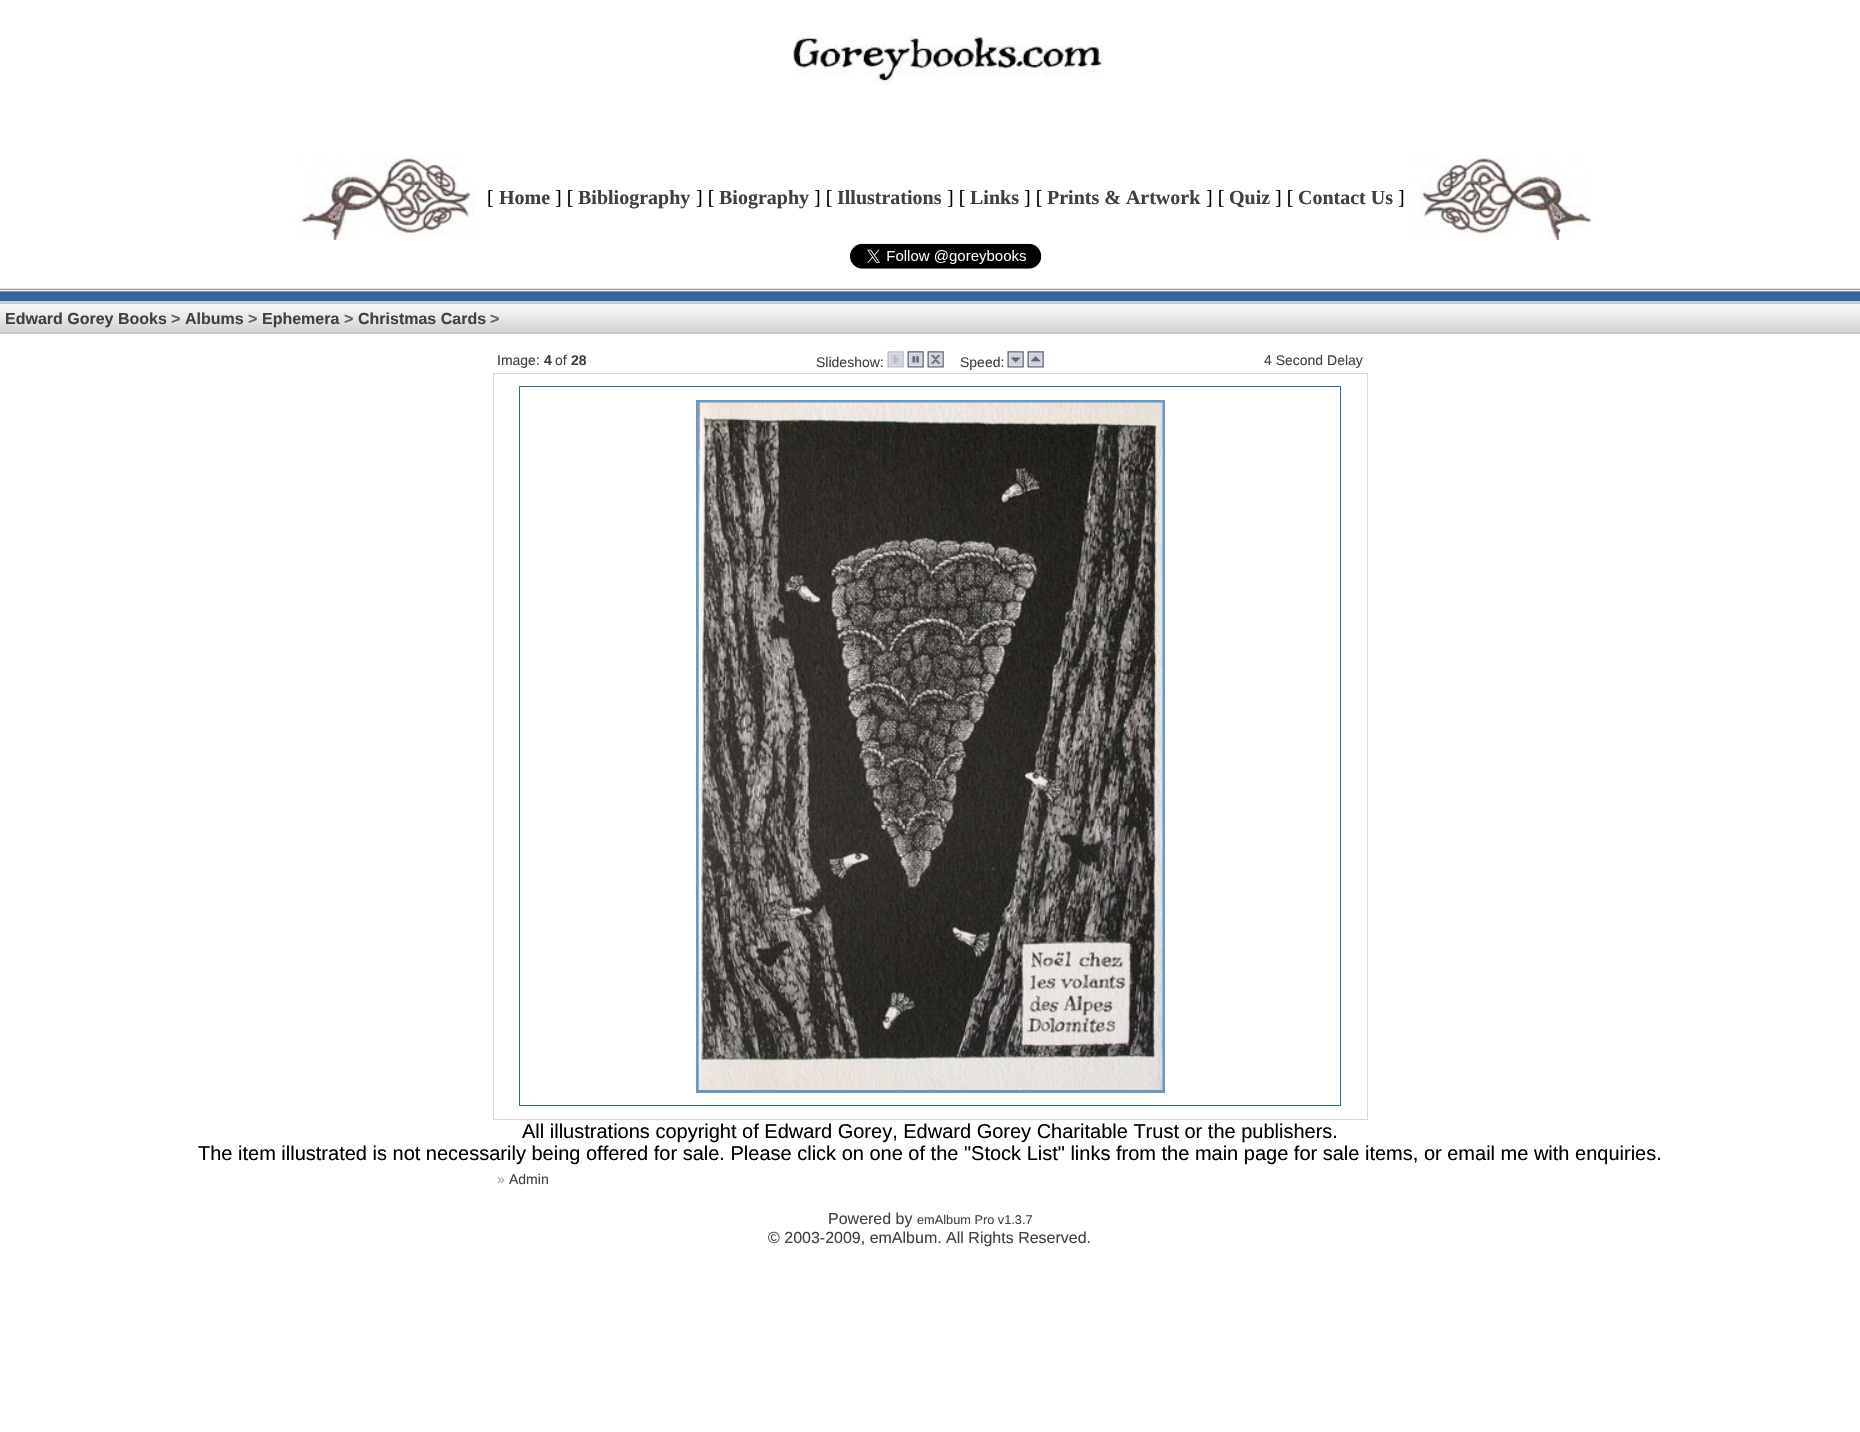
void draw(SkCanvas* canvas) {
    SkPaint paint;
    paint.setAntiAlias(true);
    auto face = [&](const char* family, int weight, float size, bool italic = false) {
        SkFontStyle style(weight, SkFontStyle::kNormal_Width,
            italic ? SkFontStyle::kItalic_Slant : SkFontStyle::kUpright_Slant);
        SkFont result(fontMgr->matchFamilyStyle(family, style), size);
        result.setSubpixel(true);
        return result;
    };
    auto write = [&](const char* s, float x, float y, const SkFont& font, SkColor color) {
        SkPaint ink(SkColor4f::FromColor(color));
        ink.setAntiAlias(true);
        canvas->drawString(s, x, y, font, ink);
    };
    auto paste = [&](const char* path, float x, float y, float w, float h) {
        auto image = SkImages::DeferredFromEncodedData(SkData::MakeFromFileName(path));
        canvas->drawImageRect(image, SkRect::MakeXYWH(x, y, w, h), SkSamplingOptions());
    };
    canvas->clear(SK_ColorWHITE);
    paste("pic1.png", 793, 35, 311, 50);
    paste("pic2.png", 295, 155, 180, 85);
    auto kFont1 = face("Liberation Serif", 400, 20);
    write("[", 487, 204, kFont1, SK_ColorBLACK);
    auto kFont2 = face("Liberation Serif", 700, 20);
    write("Home", 499, 204, kFont2, SkColorSetRGB(64, 64, 64));
    write("] [", 555, 204, kFont1, SK_ColorBLACK);
    write("Bibliography", 578, 204, kFont2, SkColorSetRGB(64, 64, 64));
    write("] [", 696, 204, kFont1, SK_ColorBLACK);
    write("Biography", 719, 204, kFont2, SkColorSetRGB(64, 64, 64));
    write("] [", 814, 204, kFont1, SK_ColorBLACK);
    write("Illustrations", 837, 204, kFont2, SkColorSetRGB(64, 64, 64));
    write("] [", 947, 204, kFont1, SK_ColorBLACK);
    write("Links", 970, 204, kFont2, SkColorSetRGB(64, 64, 64));
    write("] [", 1024, 204, kFont1, SK_ColorBLACK);
    write("Prints & Artwork", 1047, 204, kFont2, SkColorSetRGB(64, 64, 64));
    write("] [", 1206, 204, kFont1, SK_ColorBLACK);
    write("Quiz", 1229, 204, kFont2, SkColorSetRGB(64, 64, 64));
    write("] [", 1275, 204, kFont1, SK_ColorBLACK);
    write("Contact Us", 1298, 204, kFont2, SkColorSetRGB(64, 64, 64));
    write("]", 1398, 204, kFont1, SK_ColorBLACK);
    paste("pic3.png", 1410, 155, 186, 85);
    paste("pic4.png", 850, 243, 192, 26);
    paste("pic5.png", 0, 288, 1860, 16);
    paste("pic6.png", 0, 303, 1860, 31);
    auto kFont3 = face("Liberation Sans", 700, 16);
    write("Edward Gorey Books", 5, 324, kFont3, SkColorSetRGB(64, 64, 64));
    write(">", 171, 324, kFont3, SkColorSetRGB(93, 93, 120));
    write("Albums", 185, 324, kFont3, SkColorSetRGB(64, 64, 64));
    write(">", 248, 324, kFont3, SkColorSetRGB(93, 93, 120));
    write("Ephemera", 262, 324, kFont3, SkColorSetRGB(64, 64, 64));
    write(">", 344, 324, kFont3, SkColorSetRGB(93, 93, 120));
    write("Christmas Cards", 358, 324, kFont3, SkColorSetRGB(64, 64, 64));
    write(">", 490, 324, kFont3, SkColorSetRGB(93, 93, 120));
    auto kFont4 = face("Liberation Sans", 400, 14);
    write("Image:", 497, 365, kFont4, SkColorSetRGB(64, 64, 64));
    auto kFont5 = face("Liberation Sans", 700, 14);
    write("4", 544, 365, kFont5, SkColorSetRGB(64, 64, 64));
    write("of", 555, 365, kFont4, SkColorSetRGB(64, 64, 64));
    write("28", 571, 365, kFont5, SkColorSetRGB(64, 64, 64));
    write("Slideshow:", 816, 367, kFont4, SkColorSetRGB(64, 64, 64));
    paste("pic7.png", 887, 351, 17, 17);
    paste("pic8.png", 907, 351, 17, 17);
    paste("pic9.png", 927, 351, 17, 17);
    write("Speed:", 960, 367, kFont4, SkColorSetRGB(64, 64, 64));
    paste("pic10.png", 1007, 351, 17, 17);
    paste("pic11.png", 1027, 351, 17, 17);
    write("4 Second Delay", 1264, 365, kFont4, SkColorSetRGB(64, 64, 64));
    paint.setStyle(SkPaint::kStroke_Style);
    paint.setStrokeWidth(1);
    paint.setColor(SkColorSetRGB(216, 216, 216));
    canvas->drawRect(SkRect::MakeXYWH(493.5f, 373.5f, 874, 746), paint);
    paint.setColor(SkColorSetRGB(51, 102, 153));
    canvas->drawRect(SkRect::MakeXYWH(519.5f, 386.5f, 821, 719), paint);
    paint.setStrokeWidth(3);
    paint.setColor(SkColorSetRGB(102, 153, 204));
    canvas->drawRect(SkRect::MakeXYWH(697.5f, 401.5f, 466, 690), paint);
    paste("pic12.png", 698, 402, 465, 688);
    auto kFont6 = face("Liberation Sans", 400, 20);
    write("All illustrations copyright of Edward Gorey, Edward Gorey Charitable Trust or the publishers.", 522, 1138, kFont6, SK_ColorBLACK);
    write("The item illustrated is not necessarily being offered for sale. Please click on one of the \"Stock List\" links from the main page for sale items, or email me with enquiries.", 198, 1160, kFont6, SK_ColorBLACK);
    write("»", 497, 1184, kFont4, SkColorSetRGB(151, 156, 178));
    write("Admin", 509, 1184, kFont4, SkColorSetRGB(64, 64, 64));
    auto kFont7 = face("Liberation Sans", 400, 16);
    write("Powered by", 828, 1224, kFont7, SkColorSetRGB(64, 64, 64));
    auto kFont8 = face("Liberation Sans", 400, 12.75f);
    write("emAlbum Pro v1.3.7", 917, 1224, kFont8, SkColorSetRGB(64, 64, 64));
    write("© 2003-2009, emAlbum. All Rights Reserved.", 768, 1243, kFont7, SkColorSetRGB(64, 64, 64));
}
